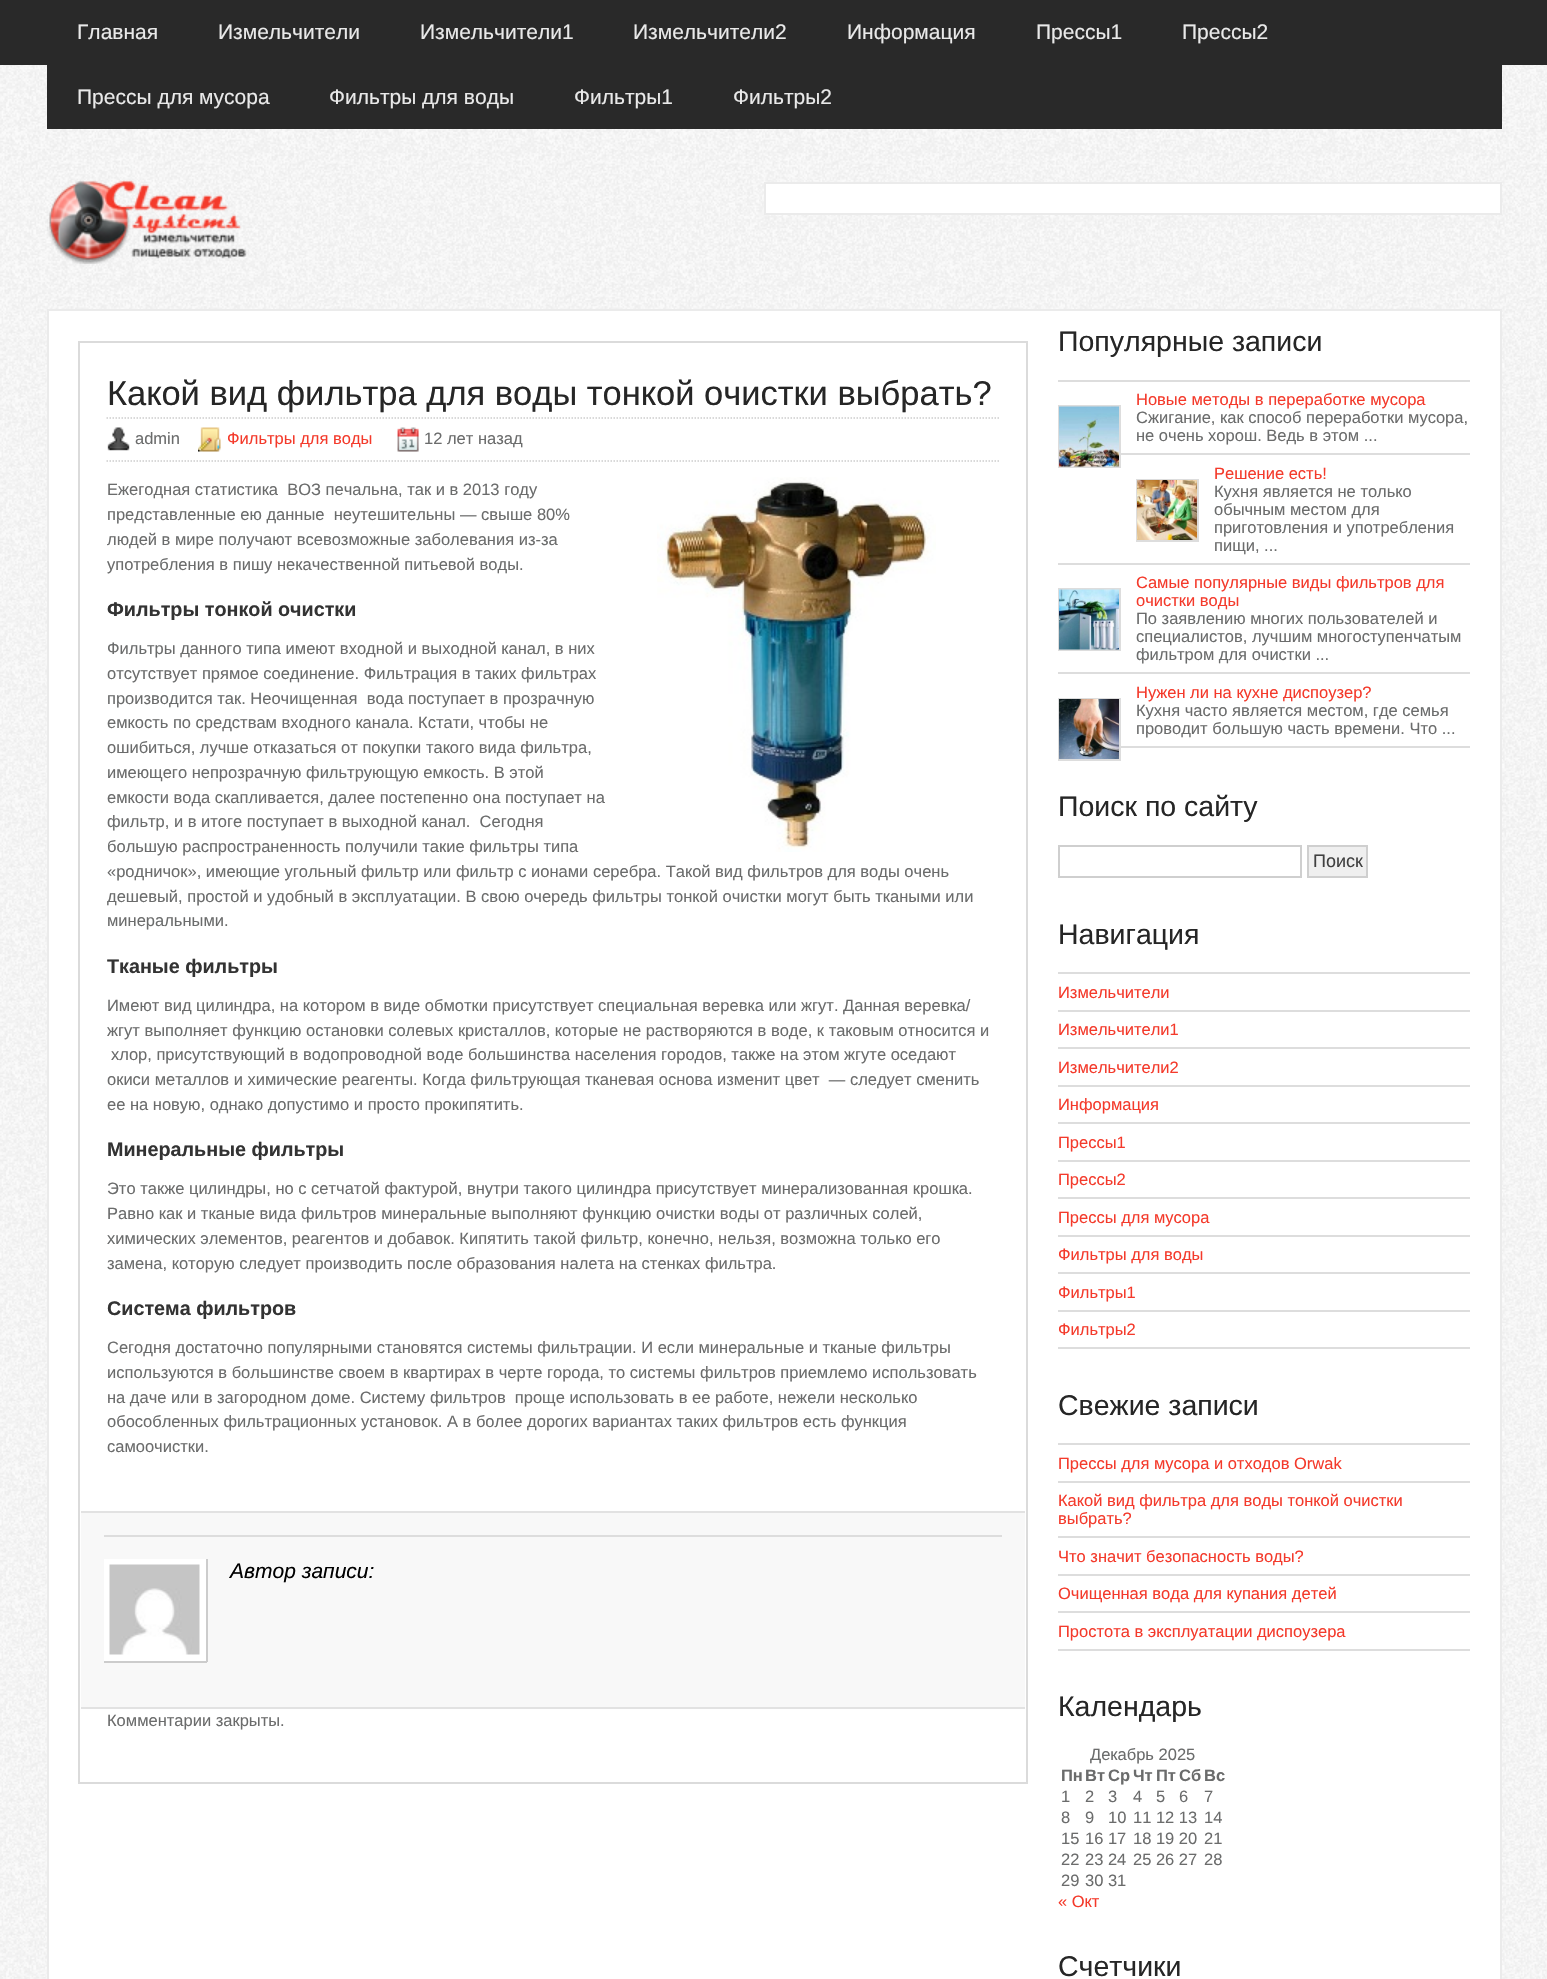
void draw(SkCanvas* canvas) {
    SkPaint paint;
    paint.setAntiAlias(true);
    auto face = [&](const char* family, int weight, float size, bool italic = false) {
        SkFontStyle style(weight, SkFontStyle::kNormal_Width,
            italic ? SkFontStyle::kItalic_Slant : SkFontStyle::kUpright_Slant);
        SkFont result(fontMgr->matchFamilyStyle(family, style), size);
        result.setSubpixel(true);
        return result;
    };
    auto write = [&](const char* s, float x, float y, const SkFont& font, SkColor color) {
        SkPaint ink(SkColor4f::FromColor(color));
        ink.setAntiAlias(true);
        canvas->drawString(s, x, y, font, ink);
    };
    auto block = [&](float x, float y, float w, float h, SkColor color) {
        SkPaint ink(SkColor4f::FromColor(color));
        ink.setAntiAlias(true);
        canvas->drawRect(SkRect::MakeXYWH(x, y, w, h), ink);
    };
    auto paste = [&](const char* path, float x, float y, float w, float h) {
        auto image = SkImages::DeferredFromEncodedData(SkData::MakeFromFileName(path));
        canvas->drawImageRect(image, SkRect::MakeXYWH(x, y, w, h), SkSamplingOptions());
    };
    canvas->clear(SK_ColorWHITE);
    paste("pic1.png", 0, 65, 1547, 1914);
    block(0, 0, 1547, 65, SkColorSetRGB(41, 41, 41));
    block(47, 65, 1455, 64, SkColorSetRGB(41, 41, 41));
    auto kFont1 = face("Liberation Sans", 400, 21);
    write("Главная", 77, 39, kFont1, SkColorSetRGB(233, 233, 233));
    write("Измельчители", 218, 39, kFont1, SkColorSetRGB(233, 233, 233));
    write("Измельчители1", 420, 39, kFont1, SkColorSetRGB(233, 233, 233));
    write("Измельчители2", 633, 39, kFont1, SkColorSetRGB(233, 233, 233));
    write("Информация", 847, 39, kFont1, SkColorSetRGB(233, 233, 233));
    write("Пресcы1", 1036, 39, kFont1, SkColorSetRGB(233, 233, 233));
    write("Пресcы2", 1182, 39, kFont1, SkColorSetRGB(233, 233, 233));
    write("Прессы для мусора", 77, 104, kFont1, SkColorSetRGB(233, 233, 233));
    write("Фильтры для воды", 329, 104, kFont1, SkColorSetRGB(233, 233, 233));
    write("Фильтры1", 574, 104, kFont1, SkColorSetRGB(233, 233, 233));
    write("Фильтры2", 733, 104, kFont1, SkColorSetRGB(233, 233, 233));
    paste("pic2.png", 47, 180, 200, 84);
    paint.setColor(SK_ColorWHITE);
    canvas->drawRect(SkRect::MakeXYWH(765, 183, 736, 31), paint);
    paint.setStyle(SkPaint::kStroke_Style);
    paint.setStrokeWidth(2);
    paint.setColor(SkColorSetRGB(235, 235, 235));
    canvas->drawRect(SkRect::MakeXYWH(765, 183, 736, 31), paint);
    paint.setStyle(SkPaint::kFill_Style);
    paint.setColor(SK_ColorWHITE);
    canvas->drawRect(SkRect::MakeXYWH(48, 310, 1453, 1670), paint);
    paint.setStyle(SkPaint::kStroke_Style);
    paint.setColor(SkColorSetRGB(235, 235, 235));
    canvas->drawRect(SkRect::MakeXYWH(48, 310, 1453, 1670), paint);
    paint.setColor(SkColorSetRGB(219, 219, 219));
    canvas->drawRect(SkRect::MakeXYWH(79, 342, 948, 1441), paint);
    auto kFont2 = face("Liberation Sans", 400, 34.5f);
    write("Какой вид фильтра для воды тонкой очистки выбрать?", 107, 405, kFont2, SkColorSetRGB(38, 38, 38));
    paint.setStrokeWidth(1.5f);
    paint.setColor(SkColorSetRGB(205, 205, 205));
    paint.setPathEffect(SkDashPathEffect::Make({{1.5f, 1.5f}}, 0));
    canvas->drawPath(SkPathBuilder().moveTo(106.5f, 418).lineTo(999, 418).detach(), paint);
    paint.setPathEffect(nullptr);
    paint.setPathEffect(SkDashPathEffect::Make({{1.5f, 1.5f}}, 0));
    canvas->drawPath(SkPathBuilder().moveTo(106.5f, 461).lineTo(999, 461).detach(), paint);
    paint.setPathEffect(nullptr);
    paste("pic3.png", 107, 427, 23, 24);
    auto kFont3 = face("Liberation Sans", 400, 16.5f);
    write("admin", 135, 444, kFont3, SkColorSetRGB(107, 108, 108));
    paste("pic4.png", 198, 427, 23, 25);
    write("Фильтры для воды", 227, 444, kFont3, SkColorSetRGB(244, 58, 43));
    paste("pic5.png", 397, 427, 22, 25);
    write("12 лет назад", 424, 444, kFont3, SkColorSetRGB(107, 108, 108));
    write("Ежегодная статистика  ВОЗ печальна, так и в 2013 году", 107, 495, kFont3, SkColorSetRGB(107, 108, 108));
    paste("pic6.png", 657, 477, 279, 375);
    write("представленные ею данные  неутешительны — свыше 80%", 107, 520, kFont3, SkColorSetRGB(107, 108, 108));
    write("людей в мире получают всевозможные заболевания из-за", 107, 545, kFont3, SkColorSetRGB(107, 108, 108));
    write("употребления в пишу некачественной питьевой воды.", 107, 570, kFont3, SkColorSetRGB(107, 108, 108));
    auto kFont4 = face("Liberation Sans", 700, 19.75f);
    write("Фильтры тонкой очистки", 107, 616, kFont4, SkColorSetRGB(51, 51, 51));
    write("Фильтры данного типа имеют входной и выходной канал, в них", 107, 654, kFont3, SkColorSetRGB(107, 108, 108));
    write("отсутствует прямое соединение. Фильтрация в таких фильтрах", 107, 679, kFont3, SkColorSetRGB(107, 108, 108));
    write("производится так. Неочищенная  вода поступает в прозрачную", 107, 704, kFont3, SkColorSetRGB(107, 108, 108));
    write("емкость по средствам входного канала. Кстати, чтобы не", 107, 728, kFont3, SkColorSetRGB(107, 108, 108));
    write("ошибиться, лучше отказаться от покупки такого вида фильтра,", 107, 753, kFont3, SkColorSetRGB(107, 108, 108));
    write("имеющего непрозрачную фильтрующую емкость. В этой", 107, 778, kFont3, SkColorSetRGB(107, 108, 108));
    write("емкости вода скапливается, далее постепенно она поступает на", 107, 803, kFont3, SkColorSetRGB(107, 108, 108));
    write("фильтр, и в итоге поступает в выходной канал.  Сегодня", 107, 827, kFont3, SkColorSetRGB(107, 108, 108));
    write("большую распространенность получили такие фильтры типа", 107, 852, kFont3, SkColorSetRGB(107, 108, 108));
    write("«родничок», имеющие угольный фильтр или фильтр с ионами серебра. Такой вид фильтров для воды очень", 107, 877, kFont3, SkColorSetRGB(107, 108, 108));
    write("дешевый, простой и удобный в эксплуатации. В свою очередь фильтры тонкой очистки могут быть ткаными или", 107, 902, kFont3, SkColorSetRGB(107, 108, 108));
    write("минеральными.", 107, 926, kFont3, SkColorSetRGB(107, 108, 108));
    write("Тканые фильтры", 107, 973, kFont4, SkColorSetRGB(51, 51, 51));
    write("Имеют вид цилиндра, на котором в виде обмотки присутствует специальная веревка или жгут. Данная веревка/", 107, 1011, kFont3, SkColorSetRGB(107, 108, 108));
    write("жгут выполняет функцию остановки солевых кристаллов, которые не растворяются в воде, к таковым относится и", 107, 1036, kFont3, SkColorSetRGB(107, 108, 108));
    write("хлор, присутствующий в водопроводной воде большинства населения городов, также на этом жгуте оседают", 111, 1060, kFont3, SkColorSetRGB(107, 108, 108));
    write("окиси металлов и химические реагенты. Когда фильтрующая тканевая основа изменит цвет  — следует сменить", 107, 1085, kFont3, SkColorSetRGB(107, 108, 108));
    write("ее на новую, однако допустимо и просто прокипятить.", 107, 1110, kFont3, SkColorSetRGB(107, 108, 108));
    write("Минеральные фильтры", 107, 1156, kFont4, SkColorSetRGB(51, 51, 51));
    write("Это также цилиндры, но с сетчатой фактурой, внутри такого цилиндра присутствует минерализованная крошка.", 107, 1194, kFont3, SkColorSetRGB(107, 108, 108));
    write("Равно как и тканые вида фильтров минеральные выполняют функцию очистки воды от различных солей,", 107, 1219, kFont3, SkColorSetRGB(107, 108, 108));
    write("химических элементов, реагентов и добавок. Кипятить такой фильтр, конечно, нельзя, возможна только его", 107, 1244, kFont3, SkColorSetRGB(107, 108, 108));
    write("замена, которую следует производить после образования налета на стенках фильтра.", 107, 1269, kFont3, SkColorSetRGB(107, 108, 108));
    write("Система фильтров", 107, 1315, kFont4, SkColorSetRGB(51, 51, 51));
    write("Сегодня достаточно популярными становятся системы фильтрации. И если минеральные и тканые фильтры", 107, 1353, kFont3, SkColorSetRGB(107, 108, 108));
    write("используются в большинстве своем в квартирах в черте города, то системы фильтров приемлемо использовать", 107, 1378, kFont3, SkColorSetRGB(107, 108, 108));
    write("на даче или в загородном доме. Систему фильтров  проще использовать в ее работе, нежели несколько", 107, 1403, kFont3, SkColorSetRGB(107, 108, 108));
    write("обособленных фильтрационных установок. А в более дорогих вариантах таких фильтров есть функция", 107, 1427, kFont3, SkColorSetRGB(107, 108, 108));
    write("самоочистки.", 107, 1452, kFont3, SkColorSetRGB(107, 108, 108));
    block(81, 1513, 944, 194, SkColorSetRGB(248, 248, 248));
    block(81, 1511, 944, 2, SkColorSetRGB(226, 226, 226));
    block(81, 1707, 944, 2, SkColorSetRGB(226, 226, 226));
    block(104, 1535, 898, 2, SkColorSetRGB(221, 221, 221));
    block(104, 1559, 102, 102, SK_ColorWHITE);
    block(206, 1559, 2, 103, SkColorSetRGB(204, 204, 204));
    block(104, 1661, 103, 2, SkColorSetRGB(204, 204, 204));
    paste("pic7.png", 109, 1564, 91, 91);
    auto kFont5 = face("Liberation Sans", 400, 21, true);
    write("Автор записи:", 230, 1578, kFont5, SK_ColorBLACK);
    write("Комментарии закрыты.", 107, 1726, kFont3, SkColorSetRGB(107, 108, 108));
    auto kFont6 = face("Liberation Sans", 400, 28.5f);
    write("Популярные записи", 1058, 351, kFont6, SkColorSetRGB(38, 38, 38));
    block(1058, 380, 412, 2, SkColorSetRGB(221, 221, 221));
    block(1121, 453, 349, 2, SkColorSetRGB(221, 221, 221));
    write("Новые методы в переработке мусора", 1136, 405, kFont3, SkColorSetRGB(244, 58, 43));
    paint.setStrokeWidth(2);
    paint.setColor(SkColorSetRGB(221, 221, 221));
    canvas->drawRect(SkRect::MakeXYWH(1059, 406, 61, 61), paint);
    paste("pic8.png", 1059, 406, 60, 61);
    write("Сжигание, как способ переработки мусора,", 1136, 423, kFont3, SkColorSetRGB(107, 108, 108));
    write("не очень хорош. Ведь в этом ...", 1136, 441, kFont3, SkColorSetRGB(107, 108, 108));
    block(1058, 563, 412, 2, SkColorSetRGB(221, 221, 221));
    write("Решение есть!", 1214, 479, kFont3, SkColorSetRGB(244, 58, 43));
    canvas->drawRect(SkRect::MakeXYWH(1137, 480, 61, 61), paint);
    paste("pic9.png", 1137, 480, 60, 60);
    write("Кухня является не только", 1214, 497, kFont3, SkColorSetRGB(107, 108, 108));
    write("обычным местом для", 1214, 515, kFont3, SkColorSetRGB(107, 108, 108));
    write("приготовления и употребления", 1214, 533, kFont3, SkColorSetRGB(107, 108, 108));
    write("пищи, ...", 1214, 551, kFont3, SkColorSetRGB(107, 108, 108));
    block(1058, 672, 412, 2, SkColorSetRGB(221, 221, 221));
    write("Самые популярные виды фильтров для", 1136, 588, kFont3, SkColorSetRGB(244, 58, 43));
    canvas->drawRect(SkRect::MakeXYWH(1059, 589, 61, 61), paint);
    paste("pic10.png", 1059, 589, 60, 61);
    write("очистки воды", 1136, 606, kFont3, SkColorSetRGB(244, 58, 43));
    write("По заявлению многих пользователей и", 1136, 624, kFont3, SkColorSetRGB(107, 108, 108));
    write("специалистов, лучшим многоступенчатым", 1136, 642, kFont3, SkColorSetRGB(107, 108, 108));
    write("фильтром для очистки ...", 1136, 660, kFont3, SkColorSetRGB(107, 108, 108));
    block(1121, 746, 349, 2, SkColorSetRGB(221, 221, 221));
    write("Нужен ли на кухне диспоузер?", 1136, 698, kFont3, SkColorSetRGB(244, 58, 43));
    canvas->drawRect(SkRect::MakeXYWH(1059, 699, 61, 61), paint);
    paste("pic11.png", 1059, 699, 60, 60);
    write("Кухня часто является местом, где семья", 1136, 716, kFont3, SkColorSetRGB(107, 108, 108));
    write("проводит большую часть времени. Что ...", 1136, 734, kFont3, SkColorSetRGB(107, 108, 108));
    write("Поиск по сайту", 1058, 816, kFont6, SkColorSetRGB(38, 38, 38));
    paint.setColor(SkColorSetRGB(207, 207, 207));
    canvas->drawRect(SkRect::MakeXYWH(1059, 846, 242, 31), paint);
    paint.setStyle(SkPaint::kFill_Style);
    paint.setColor(SkColorSetRGB(239, 239, 239));
    canvas->drawRect(SkRect::MakeXYWH(1308, 846, 59, 31), paint);
    paint.setStyle(SkPaint::kStroke_Style);
    paint.setColor(SkColorSetRGB(207, 207, 207));
    canvas->drawRect(SkRect::MakeXYWH(1308, 846, 59, 31), paint);
    auto kFont7 = face("Liberation Sans", 400, 18);
    write("Поиск", 1313, 867, kFont7, SkColorSetRGB(64, 64, 64));
    write("Навигация", 1058, 944, kFont6, SkColorSetRGB(38, 38, 38));
    block(1058, 972, 412, 2, SkColorSetRGB(221, 221, 221));
    block(1058, 1010, 412, 2, SkColorSetRGB(221, 221, 221));
    write("Измельчители", 1058, 998, kFont3, SkColorSetRGB(244, 58, 43));
    block(1058, 1047, 412, 2, SkColorSetRGB(221, 221, 221));
    write("Измельчители1", 1058, 1035, kFont3, SkColorSetRGB(244, 58, 43));
    block(1058, 1085, 412, 2, SkColorSetRGB(221, 221, 221));
    write("Измельчители2", 1058, 1073, kFont3, SkColorSetRGB(244, 58, 43));
    block(1058, 1122, 412, 2, SkColorSetRGB(221, 221, 221));
    write("Информация", 1058, 1110, kFont3, SkColorSetRGB(244, 58, 43));
    block(1058, 1160, 412, 2, SkColorSetRGB(221, 221, 221));
    write("Пресcы1", 1058, 1148, kFont3, SkColorSetRGB(244, 58, 43));
    block(1058, 1197, 412, 2, SkColorSetRGB(221, 221, 221));
    write("Пресcы2", 1058, 1185, kFont3, SkColorSetRGB(244, 58, 43));
    block(1058, 1235, 412, 2, SkColorSetRGB(221, 221, 221));
    write("Прессы для мусора", 1058, 1223, kFont3, SkColorSetRGB(244, 58, 43));
    block(1058, 1272, 412, 2, SkColorSetRGB(221, 221, 221));
    write("Фильтры для воды", 1058, 1260, kFont3, SkColorSetRGB(244, 58, 43));
    block(1058, 1310, 412, 2, SkColorSetRGB(221, 221, 221));
    write("Фильтры1", 1058, 1298, kFont3, SkColorSetRGB(244, 58, 43));
    block(1058, 1347, 412, 2, SkColorSetRGB(221, 221, 221));
    write("Фильтры2", 1058, 1335, kFont3, SkColorSetRGB(244, 58, 43));
    write("Свежие записи", 1058, 1415, kFont6, SkColorSetRGB(38, 38, 38));
    block(1058, 1443, 412, 2, SkColorSetRGB(221, 221, 221));
    block(1058, 1481, 412, 2, SkColorSetRGB(221, 221, 221));
    write("Прессы для мусора и отходов Orwak", 1058, 1469, kFont3, SkColorSetRGB(244, 58, 43));
    block(1058, 1536, 412, 2, SkColorSetRGB(221, 221, 221));
    write("Какой вид фильтра для воды тонкой очистки", 1058, 1506, kFont3, SkColorSetRGB(244, 58, 43));
    write("выбрать?", 1058, 1524, kFont3, SkColorSetRGB(244, 58, 43));
    block(1058, 1574, 412, 2, SkColorSetRGB(221, 221, 221));
    write("Что значит безопасность воды?", 1058, 1562, kFont3, SkColorSetRGB(244, 58, 43));
    block(1058, 1611, 412, 2, SkColorSetRGB(221, 221, 221));
    write("Очищенная вода для купания детей", 1058, 1599, kFont3, SkColorSetRGB(244, 58, 43));
    block(1058, 1649, 412, 2, SkColorSetRGB(221, 221, 221));
    write("Простота в эксплуатации диспоузера", 1058, 1637, kFont3, SkColorSetRGB(244, 58, 43));
    write("Календарь", 1058, 1716, kFont6, SkColorSetRGB(38, 38, 38));
    write("Декабрь 2025", 1090, 1760, kFont3, SkColorSetRGB(107, 108, 108));
    auto kFont8 = face("Liberation Sans", 700, 16.5f);
    write("Пн", 1061, 1781, kFont8, SkColorSetRGB(107, 108, 108));
    write("Вт", 1085, 1781, kFont8, SkColorSetRGB(107, 108, 108));
    write("Ср", 1108, 1781, kFont8, SkColorSetRGB(107, 108, 108));
    write("Чт", 1133, 1781, kFont8, SkColorSetRGB(107, 108, 108));
    write("Пт", 1156, 1781, kFont8, SkColorSetRGB(107, 108, 108));
    write("Сб", 1179, 1781, kFont8, SkColorSetRGB(107, 108, 108));
    write("Вс", 1204, 1781, kFont8, SkColorSetRGB(107, 108, 108));
    write("1", 1061, 1802, kFont3, SkColorSetRGB(107, 108, 108));
    write("2", 1085, 1802, kFont3, SkColorSetRGB(107, 108, 108));
    write("3", 1108, 1802, kFont3, SkColorSetRGB(107, 108, 108));
    write("4", 1133, 1802, kFont3, SkColorSetRGB(107, 108, 108));
    write("5", 1156, 1802, kFont3, SkColorSetRGB(107, 108, 108));
    write("6", 1179, 1802, kFont3, SkColorSetRGB(107, 108, 108));
    write("7", 1204, 1802, kFont3, SkColorSetRGB(107, 108, 108));
    write("8", 1061, 1823, kFont3, SkColorSetRGB(107, 108, 108));
    write("9", 1085, 1823, kFont3, SkColorSetRGB(107, 108, 108));
    write("10", 1108, 1823, kFont3, SkColorSetRGB(107, 108, 108));
    write("11 12 13", 1133, 1823, kFont3, SkColorSetRGB(107, 108, 108));
    write("14", 1204, 1823, kFont3, SkColorSetRGB(107, 108, 108));
    write("15", 1061, 1844, kFont3, SkColorSetRGB(107, 108, 108));
    write("16 17", 1085, 1844, kFont3, SkColorSetRGB(107, 108, 108));
    write("18 19 20", 1133, 1844, kFont3, SkColorSetRGB(107, 108, 108));
    write("21", 1204, 1844, kFont3, SkColorSetRGB(107, 108, 108));
    write("22", 1061, 1865, kFont3, SkColorSetRGB(107, 108, 108));
    write("23 24", 1085, 1865, kFont3, SkColorSetRGB(107, 108, 108));
    write("25 26 27", 1133, 1865, kFont3, SkColorSetRGB(107, 108, 108));
    write("28", 1204, 1865, kFont3, SkColorSetRGB(107, 108, 108));
    write("29", 1061, 1886, kFont3, SkColorSetRGB(107, 108, 108));
    write("30 31", 1085, 1886, kFont3, SkColorSetRGB(107, 108, 108));
    write("« Окт", 1058, 1907, kFont3, SkColorSetRGB(244, 58, 43));
    write("Счетчики", 1058, 1976, kFont6, SkColorSetRGB(38, 38, 38));
}
